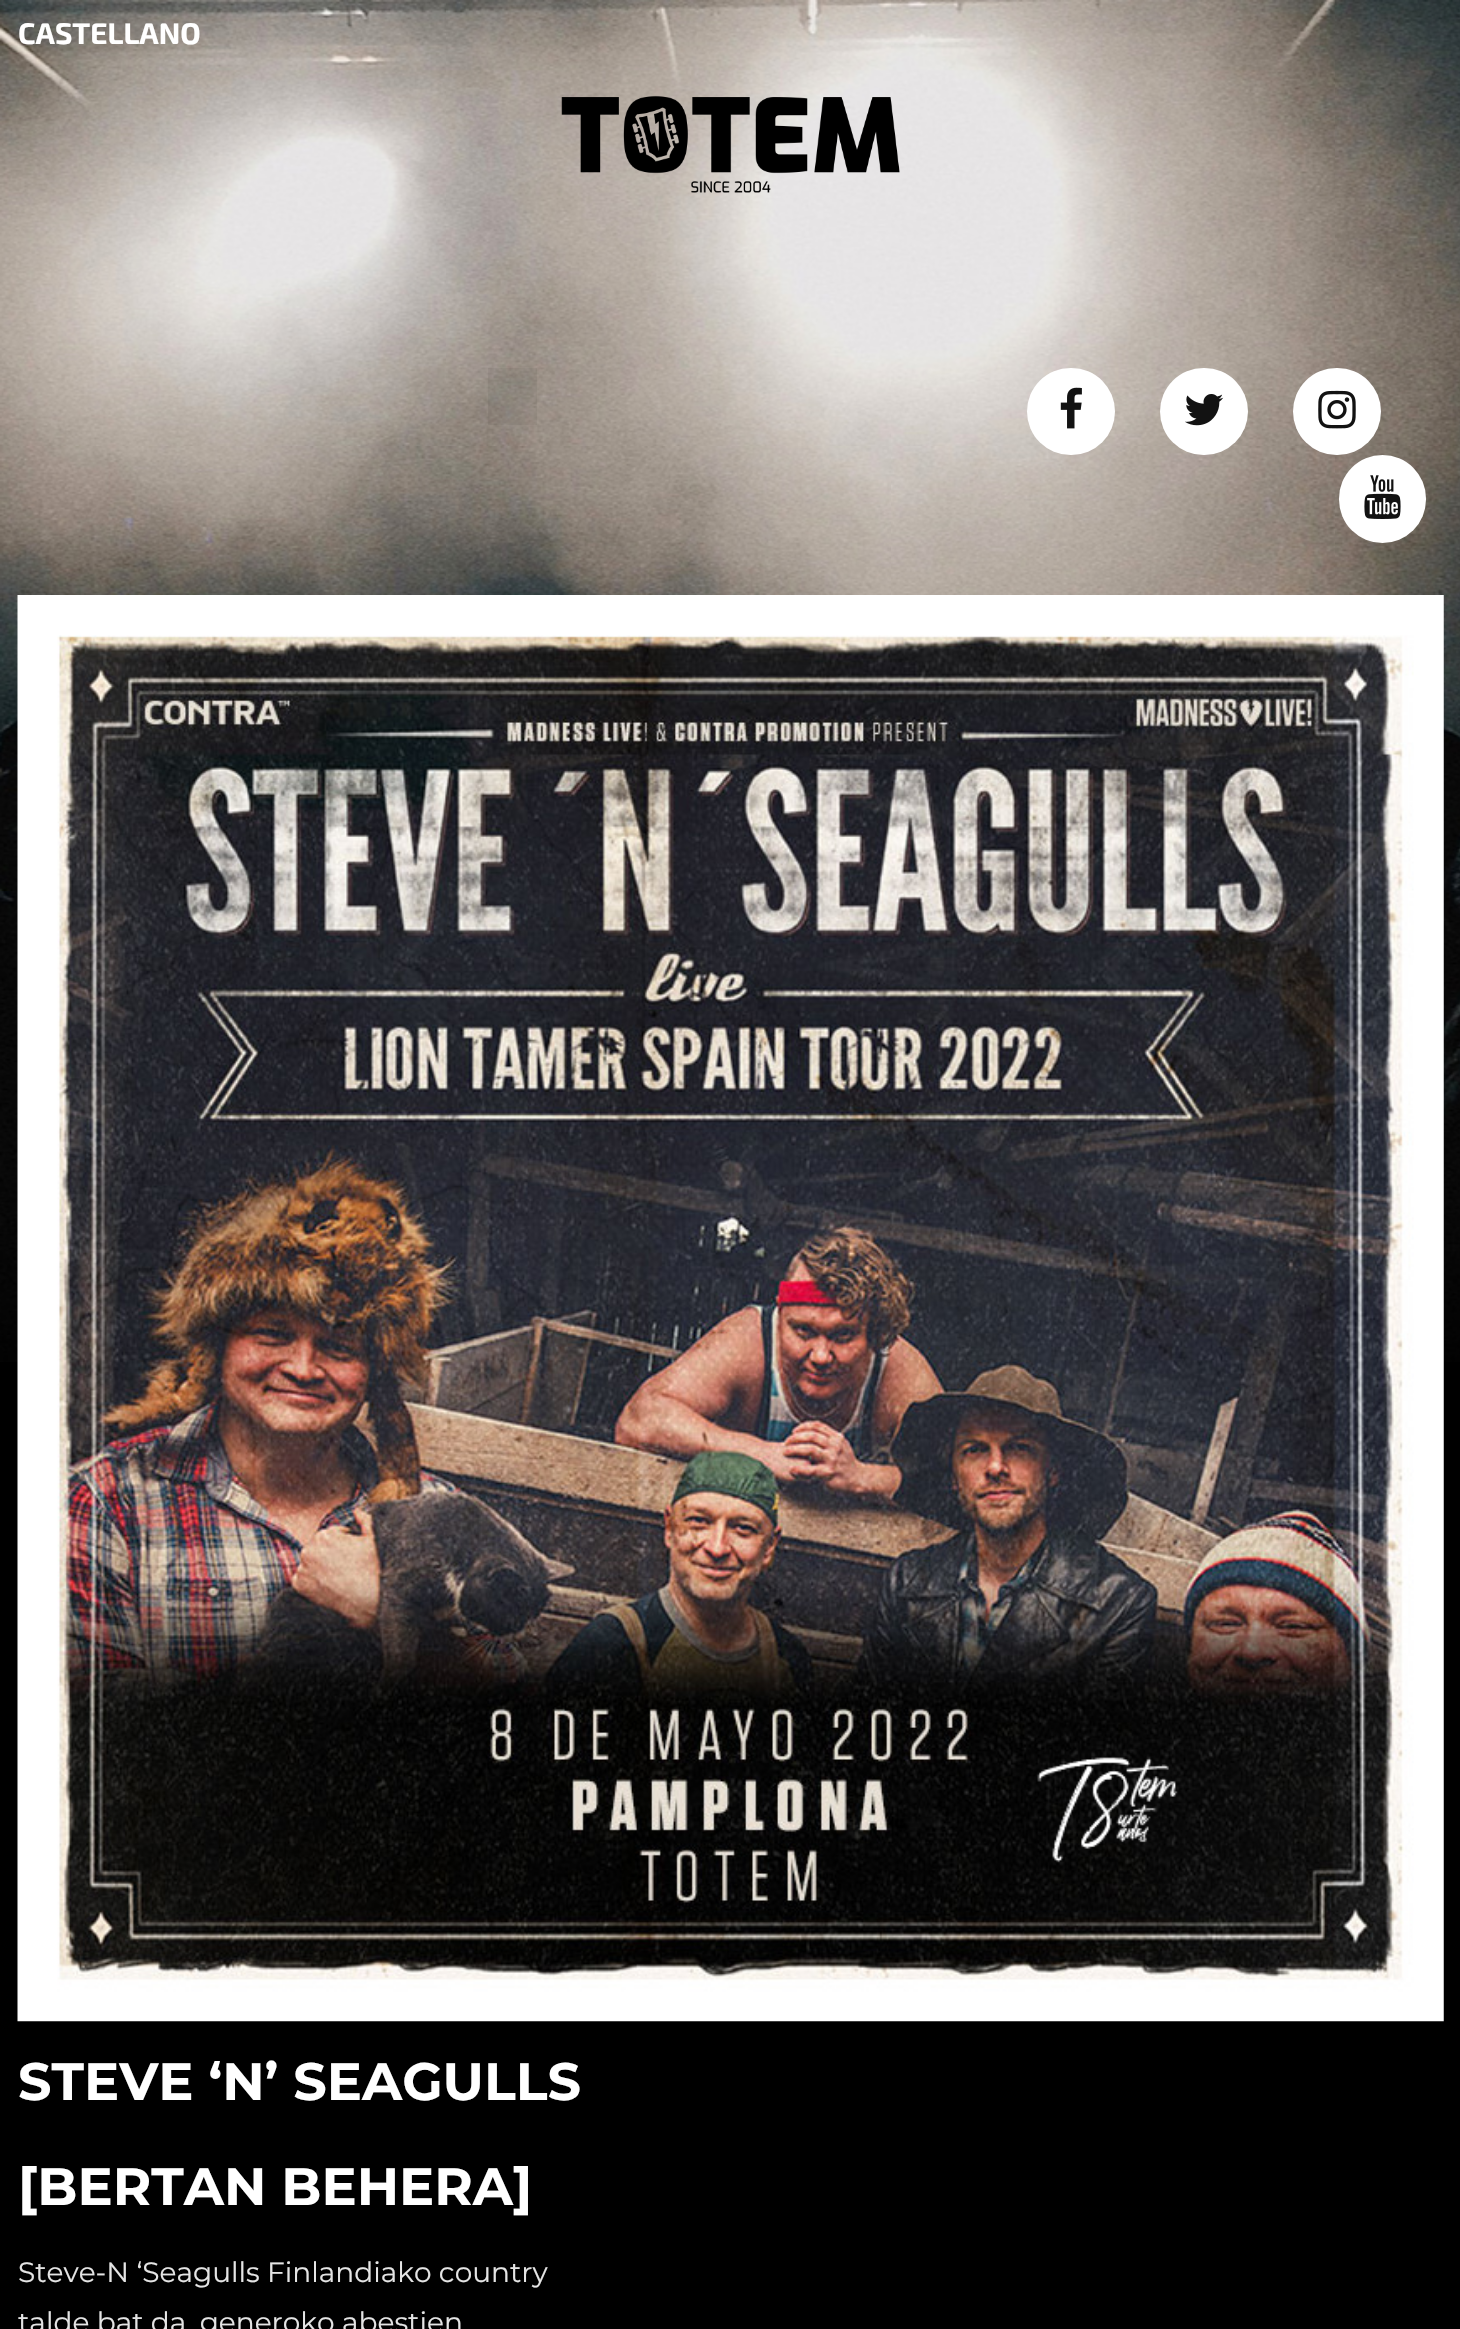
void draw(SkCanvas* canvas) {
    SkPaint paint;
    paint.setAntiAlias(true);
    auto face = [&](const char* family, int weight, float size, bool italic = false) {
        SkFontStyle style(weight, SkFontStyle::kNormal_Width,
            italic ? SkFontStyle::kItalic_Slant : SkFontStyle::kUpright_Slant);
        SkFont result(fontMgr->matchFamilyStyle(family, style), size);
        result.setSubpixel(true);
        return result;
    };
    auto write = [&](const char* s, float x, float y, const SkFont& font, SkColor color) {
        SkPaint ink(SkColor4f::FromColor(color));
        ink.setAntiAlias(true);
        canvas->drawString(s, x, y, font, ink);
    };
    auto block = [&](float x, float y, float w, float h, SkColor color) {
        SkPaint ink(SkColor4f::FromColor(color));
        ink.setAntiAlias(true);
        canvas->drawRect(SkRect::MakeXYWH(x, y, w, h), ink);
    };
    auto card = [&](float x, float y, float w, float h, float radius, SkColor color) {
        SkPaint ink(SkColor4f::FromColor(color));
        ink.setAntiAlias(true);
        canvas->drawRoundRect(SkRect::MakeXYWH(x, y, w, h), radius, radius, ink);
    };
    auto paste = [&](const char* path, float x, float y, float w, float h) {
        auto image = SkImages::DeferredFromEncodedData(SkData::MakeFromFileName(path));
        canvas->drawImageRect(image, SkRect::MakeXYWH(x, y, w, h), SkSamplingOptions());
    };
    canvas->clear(SK_ColorBLACK);
    paste("pic1.png", 0, 0, 1460, 1362);
    auto kFont1 = face("Exo 2", 700, 29.75f);
    write("CASTELLANO", 18, 44, kFont1, SK_ColorWHITE);
    paste("pic2.png", 561, 96, 339, 97);
    block(488, 368, 49, 57, SkColorSetARGB(13, 0, 0, 0));
    card(1027, 368, 88, 87, 43.5f, SK_ColorWHITE);
    paste("pic3.png", 1060, 387, 22, 42);
    card(1160, 368, 88, 87, 43.5f, SK_ColorWHITE);
    paste("pic4.png", 1185, 394, 39, 32);
    card(1293, 368, 88, 87, 43.5f, SK_ColorWHITE);
    paste("pic5.png", 1318, 390, 38, 39);
    card(1339, 455, 87, 88, 43.5f, SK_ColorWHITE);
    paste("pic6.png", 1364, 475, 37, 44);
    paste("pic7.png", 17, 595, 1427, 1427);
    auto kFont2 = face("Montserrat", 700, 52.5f);
    write("STEVE ‘N’ SEAGULLS", 18, 2100, kFont2, SK_ColorWHITE);
    write("[BERTAN BEHERA]", 18, 2205, kFont2, SK_ColorWHITE);
    auto kFont3 = face("Montserrat", 400, 28);
    write("Steve-N ‘Seagulls Finlandiako country", 18, 2282, kFont3, SkColorSetRGB(229, 229, 229));
    write("talde bat da, generoko abestien", 18, 2332, kFont3, SkColorSetRGB(229, 229, 229));
}
